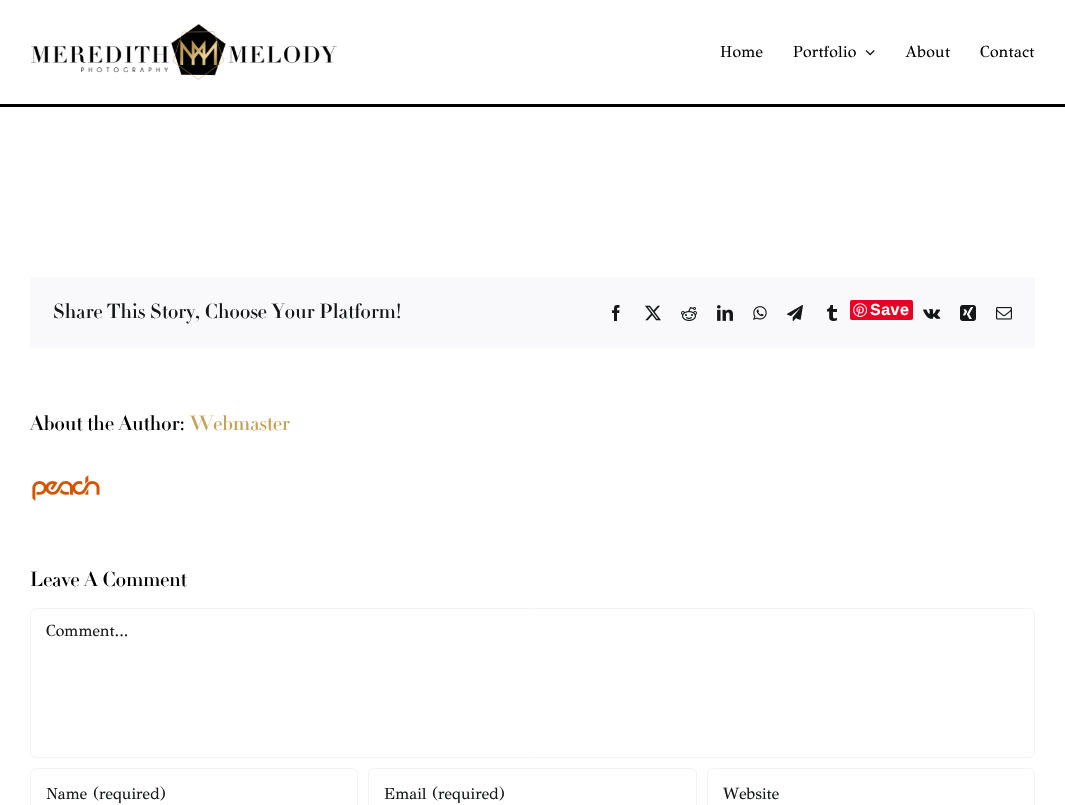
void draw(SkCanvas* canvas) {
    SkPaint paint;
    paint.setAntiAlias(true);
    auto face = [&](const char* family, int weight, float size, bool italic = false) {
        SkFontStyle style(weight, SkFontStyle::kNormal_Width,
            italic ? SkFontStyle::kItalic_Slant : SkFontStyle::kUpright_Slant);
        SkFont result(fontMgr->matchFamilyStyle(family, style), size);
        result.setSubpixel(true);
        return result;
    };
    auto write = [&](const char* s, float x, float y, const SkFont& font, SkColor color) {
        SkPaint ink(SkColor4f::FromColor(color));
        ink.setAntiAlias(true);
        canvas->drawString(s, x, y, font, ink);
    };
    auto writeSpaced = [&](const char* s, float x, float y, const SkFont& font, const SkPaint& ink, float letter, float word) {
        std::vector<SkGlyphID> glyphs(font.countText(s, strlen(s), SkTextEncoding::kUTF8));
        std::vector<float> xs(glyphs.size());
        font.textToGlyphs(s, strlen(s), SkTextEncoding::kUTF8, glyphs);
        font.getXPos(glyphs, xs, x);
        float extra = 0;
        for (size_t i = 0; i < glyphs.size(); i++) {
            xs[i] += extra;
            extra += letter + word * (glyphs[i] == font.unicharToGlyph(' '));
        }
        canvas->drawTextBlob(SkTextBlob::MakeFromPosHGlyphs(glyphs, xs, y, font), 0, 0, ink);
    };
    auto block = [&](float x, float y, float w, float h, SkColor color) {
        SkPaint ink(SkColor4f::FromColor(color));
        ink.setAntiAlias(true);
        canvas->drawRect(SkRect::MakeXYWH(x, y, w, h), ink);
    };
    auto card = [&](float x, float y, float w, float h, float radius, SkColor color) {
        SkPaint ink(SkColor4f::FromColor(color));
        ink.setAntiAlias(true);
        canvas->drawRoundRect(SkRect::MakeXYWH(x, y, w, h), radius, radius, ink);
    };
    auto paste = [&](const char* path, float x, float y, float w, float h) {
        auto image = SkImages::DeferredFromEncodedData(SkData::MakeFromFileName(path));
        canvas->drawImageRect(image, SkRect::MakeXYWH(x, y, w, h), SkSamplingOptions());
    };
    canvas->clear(SK_ColorWHITE);
    block(0, 104, 1065, 3, SK_ColorBLACK);
    paste("pic1.png", 31, 24, 306, 56);
    auto kFont1 = face("GFS Didot", 400, 16);
    paint.setColor(SK_ColorBLACK);
    writeSpaced("Home", 720, 57, kFont1, paint, 0.25f, 0);
    writeSpaced("Portfolio", 793, 57, kFont1, paint, 0.25f, 0);
    paste("pic2.png", 865, 50, 10, 6);
    writeSpaced("About", 905, 57, kFont1, paint, 0.25f, 0);
    writeSpaced("Contact", 980, 57, kFont1, paint, 0.25f, 0);
    block(30, 277, 1005, 71, SkColorSetRGB(249, 249, 251));
    auto kFont2 = face("Didot", 400, 20);
    paint.setColor(SkColorSetRGB(20, 22, 23));
    writeSpaced("Share This Story, Choose Your Platform!", 53, 318, kFont2, paint, -0.3f, 0);
    paste("pic3.png", 612, 305, 8, 16);
    paste("pic4.png", 645, 305, 16, 16);
    paste("pic5.png", 681, 307, 16, 14);
    paste("pic6.png", 717, 305, 16, 16);
    paste("pic7.png", 753, 306, 14, 14);
    paste("pic8.png", 787, 305, 16, 16);
    paste("pic9.png", 827, 305, 10, 16);
    card(850, 300, 63, 20, 2, SkColorSetRGB(230, 0, 35));
    paste("pic10.png", 853, 303, 14, 14);
    auto kFont3 = face("Liberation Sans", 700, 16);
    paint.setColor(SK_ColorWHITE);
    writeSpaced("Save", 870, 315, kFont3, paint, 0.5f, 0);
    paste("pic11.png", 923, 309, 18, 10);
    paste("pic12.png", 960, 305, 16, 16);
    paste("pic13.png", 996, 307, 16, 13);
    paint.setColor(SK_ColorBLACK);
    writeSpaced("About the Author:", 30, 430, kFont2, paint, -0.3f, 0);
    paint.setColor(SkColorSetRGB(197, 160, 87));
    writeSpaced("Webmaster", 190, 430, kFont2, paint, -0.3f, 0);
    paste("pic14.png", 32, 475, 68, 26);
    paint.setColor(SK_ColorBLACK);
    writeSpaced("Leave A Comment", 30, 586, kFont2, paint, -0.3f, 0);
    paint.setStyle(SkPaint::kStroke_Style);
    paint.setStrokeWidth(1);
    paint.setColor(SkColorSetRGB(242, 243, 245));
    canvas->drawRoundRect(SkRect::MakeXYWH(30.5f, 608.5f, 1004, 149), 5.5f, 5.5f, paint);
    write("Comment...", 46, 636, kFont1, SkColorSetRGB(20, 22, 23));
    canvas->drawRoundRect(SkRect::MakeXYWH(30.5f, 768.5f, 327, 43), 5.5f, 5.5f, paint);
    canvas->save();
    canvas->clipRect(SkRect::MakeXYWH(46, 784, 296, 19));
    write("Name (required)", 46, 799, kFont1, SkColorSetRGB(20, 22, 23));
    canvas->restore();
    canvas->drawRoundRect(SkRect::MakeXYWH(368.5f, 768.5f, 328, 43), 5.5f, 5.5f, paint);
    canvas->save();
    canvas->clipRect(SkRect::MakeXYWH(384, 784, 297, 19));
    write("Email (required)", 384, 799, kFont1, SkColorSetRGB(20, 22, 23));
    canvas->restore();
    canvas->drawRoundRect(SkRect::MakeXYWH(707.5f, 768.5f, 327, 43), 5.5f, 5.5f, paint);
    write("Website", 723, 799, kFont1, SkColorSetRGB(20, 22, 23));
}
